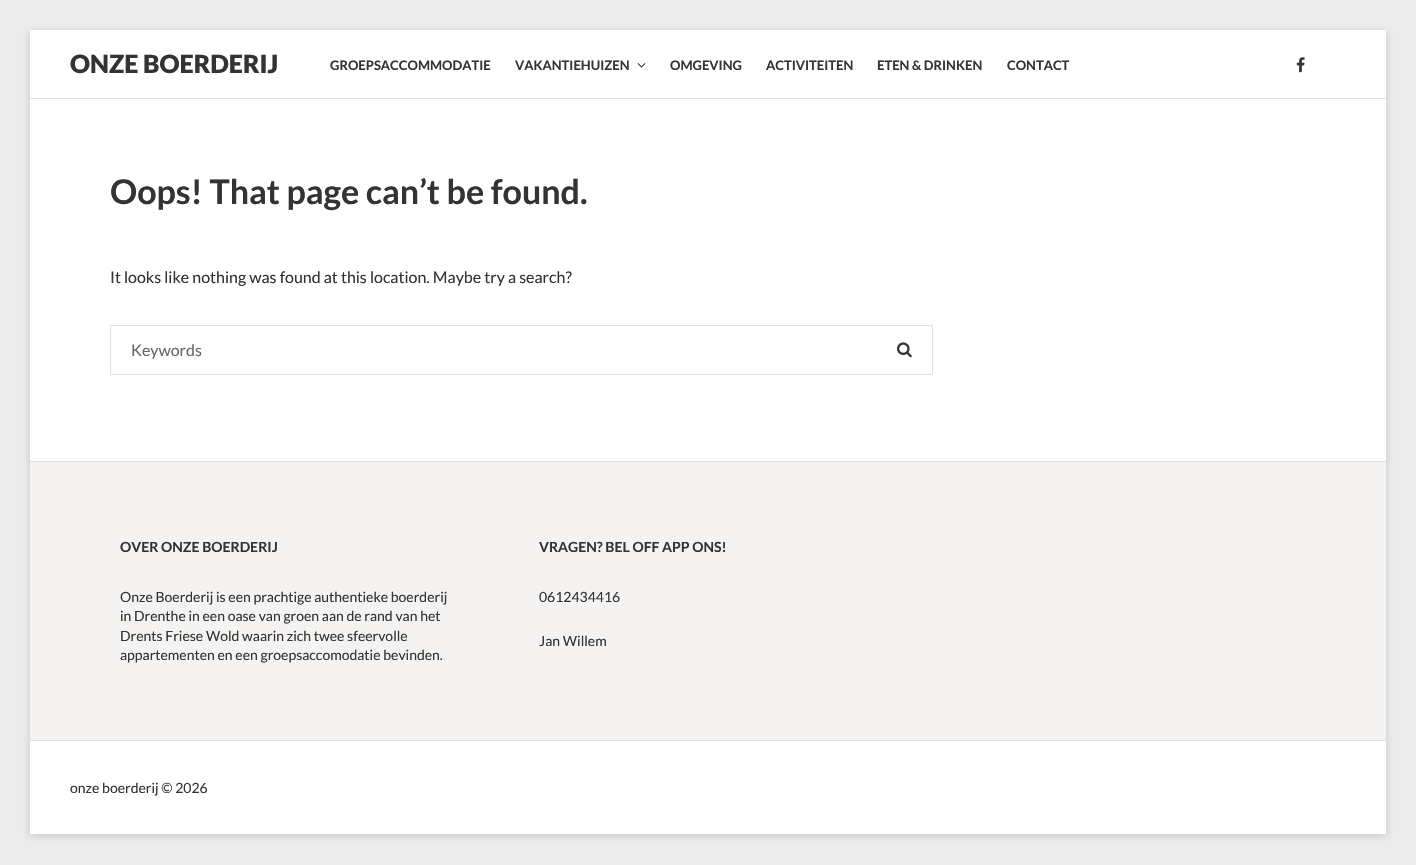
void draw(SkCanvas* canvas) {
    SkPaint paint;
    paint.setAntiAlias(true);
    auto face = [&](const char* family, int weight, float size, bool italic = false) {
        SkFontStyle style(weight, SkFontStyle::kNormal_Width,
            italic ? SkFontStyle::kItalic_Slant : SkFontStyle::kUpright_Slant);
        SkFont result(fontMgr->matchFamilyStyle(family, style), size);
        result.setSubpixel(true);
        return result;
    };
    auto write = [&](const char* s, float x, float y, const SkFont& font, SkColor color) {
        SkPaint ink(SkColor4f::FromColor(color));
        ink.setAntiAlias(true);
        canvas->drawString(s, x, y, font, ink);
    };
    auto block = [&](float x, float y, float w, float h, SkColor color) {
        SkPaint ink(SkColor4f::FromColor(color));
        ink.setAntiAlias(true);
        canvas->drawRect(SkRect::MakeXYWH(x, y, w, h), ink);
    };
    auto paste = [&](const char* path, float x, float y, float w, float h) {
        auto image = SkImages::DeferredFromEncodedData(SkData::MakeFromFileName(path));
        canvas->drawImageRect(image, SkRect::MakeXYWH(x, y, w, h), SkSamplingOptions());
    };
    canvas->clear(SkColorSetRGB(236, 236, 236));
    paint.setColor(SkColorSetARGB(51, 51, 51, 51));
    paint.setMaskFilter(SkMaskFilter::MakeBlur(kNormal_SkBlurStyle, 4));
    canvas->drawRect(SkRect::MakeXYWH(30, 32, 1356, 804), paint);
    paint.setMaskFilter(nullptr);
    block(30, 30, 1356, 431, SK_ColorWHITE);
    block(30, 98, 1356, 1, SkColorSetRGB(224, 225, 229));
    auto kFont1 = face("Lato", 900, 25);
    write("ONZE BOERDERIJ", 70, 73, kFont1, SkColorSetRGB(51, 51, 51));
    auto kFont2 = face("Lato", 700, 13);
    write("GROEPSACCOMMODATIE", 330, 70, kFont2, SkColorSetRGB(51, 51, 51));
    write("VAKANTIEHUIZEN", 515, 70, kFont2, SkColorSetRGB(51, 51, 51));
    paste("pic1.png", 637, 63, 9, 5);
    write("OMGEVING", 670, 70, kFont2, SkColorSetRGB(51, 51, 51));
    write("ACTIVITEITEN", 766, 70, kFont2, SkColorSetRGB(51, 51, 51));
    write("ETEN & DRINKEN", 877, 70, kFont2, SkColorSetRGB(51, 51, 51));
    write("CONTACT", 1007, 70, kFont2, SkColorSetRGB(51, 51, 51));
    paste("pic2.png", 1296, 57, 9, 16);
    auto kFont3 = face("Lato", 700, 34);
    write("Oops! That page can’t be found.", 110, 204, kFont3, SkColorSetRGB(51, 51, 51));
    auto kFont4 = face("Lato", 400, 16);
    write("It looks like nothing was found at this location. Maybe try a search?", 110, 283, kFont4, SkColorSetRGB(51, 51, 51));
    paint.setStyle(SkPaint::kStroke_Style);
    paint.setStrokeWidth(1);
    paint.setColor(SkColorSetRGB(224, 225, 229));
    canvas->drawRect(SkRect::MakeXYWH(110.5f, 325.5f, 822, 49), paint);
    write("Keywords", 131, 356, kFont4, SkColorSetRGB(102, 102, 102));
    paste("pic3.png", 897, 342, 15, 16);
    block(30, 462, 1356, 278, SkColorSetRGB(245, 243, 241));
    block(30, 461, 1356, 1, SkColorSetRGB(224, 225, 229));
    auto kFont5 = face("Lato", 700, 14);
    write("OVER ONZE BOERDERIJ", 120, 552, kFont5, SkColorSetRGB(51, 51, 51));
    auto kFont6 = face("Lato", 400, 14);
    write("Onze Boerderij is een prachtige authentieke boerderij", 120, 602, kFont6, SkColorSetRGB(51, 51, 51));
    write("in Drenthe in een oase van groen aan de rand van het", 120, 621, kFont6, SkColorSetRGB(51, 51, 51));
    write("Drents Friese Wold waarin zich twee sfeervolle", 120, 641, kFont6, SkColorSetRGB(51, 51, 51));
    write("appartementen en een groepsaccomodatie bevinden.", 120, 660, kFont6, SkColorSetRGB(51, 51, 51));
    write("VRAGEN? BEL OFF APP ONS!", 539, 552, kFont5, SkColorSetRGB(51, 51, 51));
    write("0612434416", 539, 602, kFont6, SkColorSetRGB(51, 51, 51));
    write("Jan Willem", 539, 646, kFont6, SkColorSetRGB(51, 51, 51));
    block(30, 741, 1356, 93, SK_ColorWHITE);
    block(30, 740, 1356, 1, SkColorSetRGB(224, 225, 229));
    write("onze boerderij © 2026", 70, 793, kFont6, SkColorSetRGB(51, 51, 51));
}
